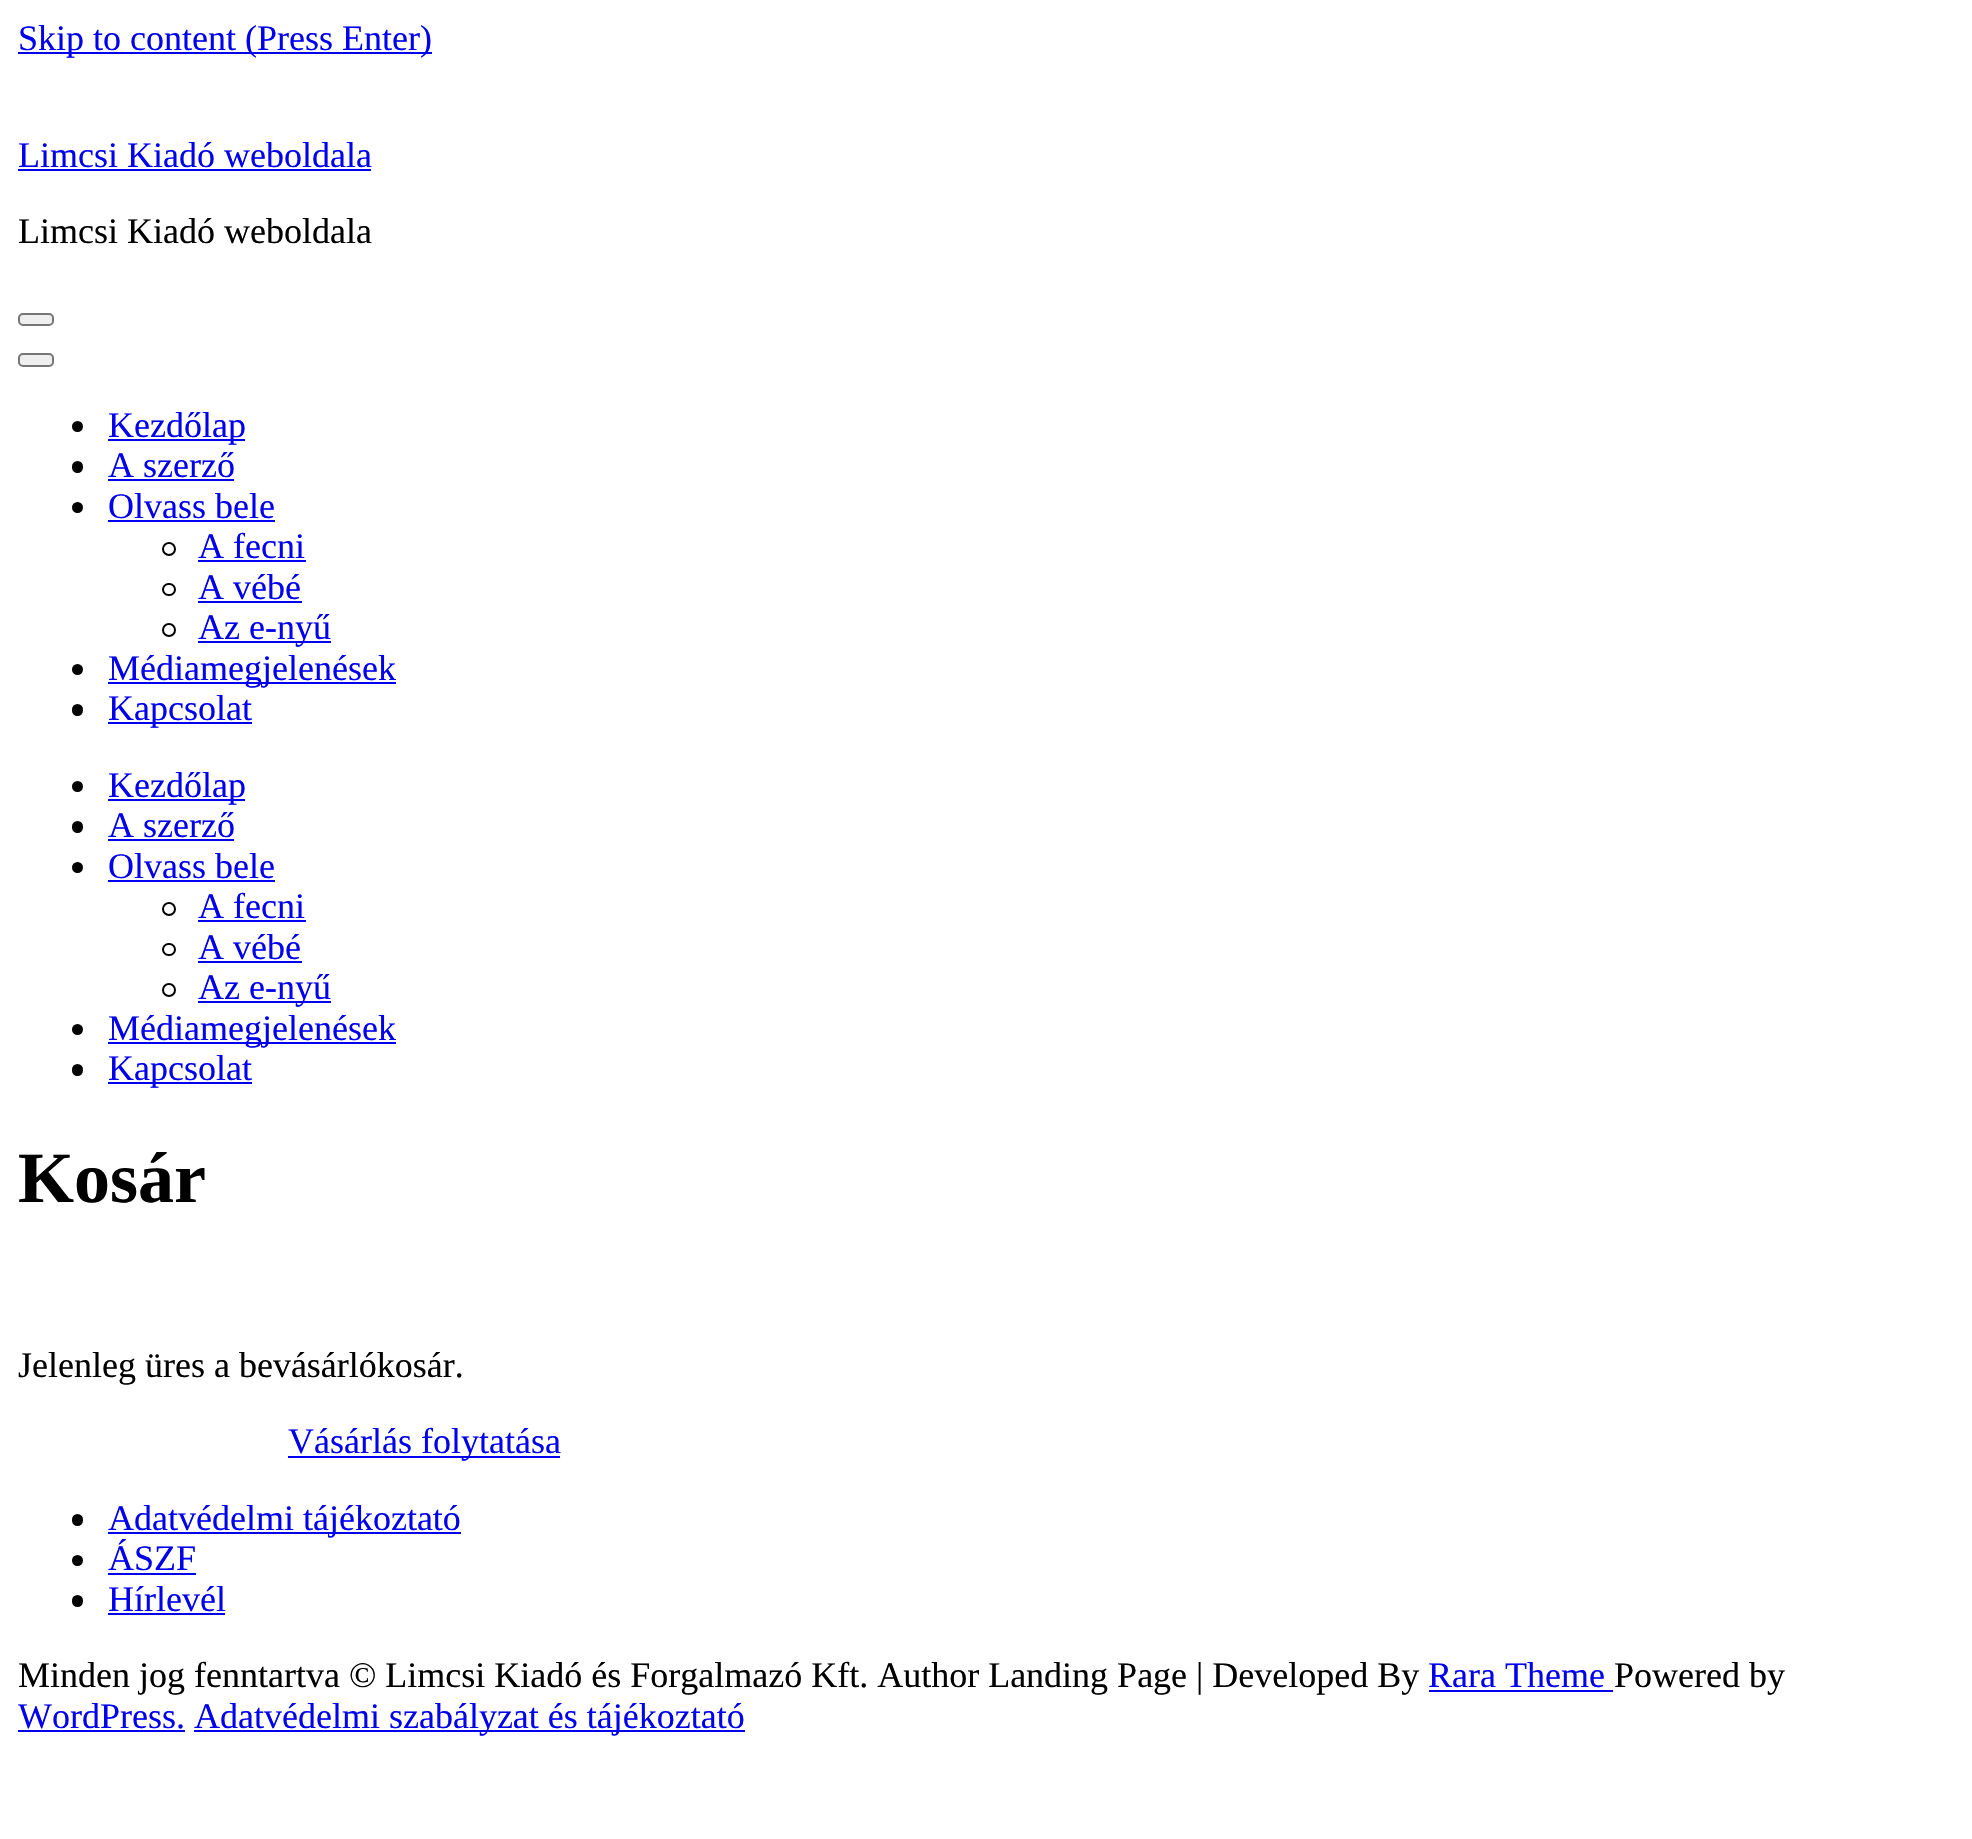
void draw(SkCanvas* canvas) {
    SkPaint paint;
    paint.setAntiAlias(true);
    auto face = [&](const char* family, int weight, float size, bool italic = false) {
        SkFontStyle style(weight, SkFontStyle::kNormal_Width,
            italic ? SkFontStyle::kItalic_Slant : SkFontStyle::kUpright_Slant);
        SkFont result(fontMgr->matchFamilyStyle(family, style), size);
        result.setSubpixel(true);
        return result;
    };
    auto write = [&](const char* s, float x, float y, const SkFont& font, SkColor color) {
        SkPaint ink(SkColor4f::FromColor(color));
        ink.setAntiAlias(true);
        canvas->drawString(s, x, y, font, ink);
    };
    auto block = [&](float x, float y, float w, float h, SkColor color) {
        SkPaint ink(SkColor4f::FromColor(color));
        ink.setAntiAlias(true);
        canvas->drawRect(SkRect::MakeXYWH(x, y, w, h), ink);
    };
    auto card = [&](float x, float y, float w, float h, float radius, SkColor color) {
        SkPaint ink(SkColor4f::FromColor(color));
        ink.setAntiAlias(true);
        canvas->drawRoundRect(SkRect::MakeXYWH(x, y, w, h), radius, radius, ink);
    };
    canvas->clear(SK_ColorWHITE);
    block(18, 52, 414, 2, SkColorSetRGB(0, 0, 238));
    auto kFont1 = face("Liberation Serif", 400, 36);
    write("Skip to content (Press Enter)", 18, 50, kFont1, SkColorSetRGB(0, 0, 238));
    write("Limcsi Kiadó weboldala", 18, 167, kFont1, SkColorSetRGB(0, 0, 238));
    block(18, 169, 353, 2, SkColorSetRGB(0, 0, 238));
    write("Limcsi Kiadó weboldala", 18, 243, kFont1, SK_ColorBLACK);
    paint.setColor(SkColorSetRGB(239, 239, 239));
    canvas->drawRoundRect(SkRect::MakeXYWH(19, 314, 34, 11), 4, 4, paint);
    paint.setStyle(SkPaint::kStroke_Style);
    paint.setStrokeWidth(2);
    paint.setColor(SkColorSetRGB(118, 118, 118));
    canvas->drawRoundRect(SkRect::MakeXYWH(19, 314, 34, 11), 4, 4, paint);
    paint.setStyle(SkPaint::kFill_Style);
    paint.setColor(SkColorSetRGB(239, 239, 239));
    canvas->drawRoundRect(SkRect::MakeXYWH(19, 354, 34, 12), 4, 4, paint);
    paint.setStyle(SkPaint::kStroke_Style);
    paint.setColor(SkColorSetRGB(118, 118, 118));
    canvas->drawRoundRect(SkRect::MakeXYWH(19, 354, 34, 12), 4, 4, paint);
    paint.setStyle(SkPaint::kFill_Style);
    paint.setColor(SK_ColorBLACK);
    canvas->drawCircle(77.5f, 426.5f, 5.5f, paint);
    block(108, 439, 137, 2, SkColorSetRGB(0, 0, 238));
    write("Kezdőlap", 108, 437, kFont1, SkColorSetRGB(0, 0, 238));
    card(72, 461, 11, 12, 5.5f, SK_ColorBLACK);
    write("A szerző", 108, 477, kFont1, SkColorSetRGB(0, 0, 238));
    block(108, 479, 126, 2, SkColorSetRGB(0, 0, 238));
    canvas->drawCircle(77.5f, 507.5f, 5.5f, paint);
    write("Olvass bele", 108, 518, kFont1, SkColorSetRGB(0, 0, 238));
    block(108, 520, 167, 2, SkColorSetRGB(0, 0, 238));
    paint.setStyle(SkPaint::kStroke_Style);
    canvas->drawCircle(169, 549, 6, paint);
    write("A fecni", 198, 558, kFont1, SkColorSetRGB(0, 0, 238));
    block(198, 560, 108, 2, SkColorSetRGB(0, 0, 238));
    canvas->drawRoundRect(SkRect::MakeXYWH(163, 584, 12, 11), 5.5f, 5.5f, paint);
    write("A vébé", 198, 599, kFont1, SkColorSetRGB(0, 0, 238));
    block(198, 601, 104, 2, SkColorSetRGB(0, 0, 238));
    canvas->drawCircle(169, 630, 6, paint);
    block(198, 641, 133, 2, SkColorSetRGB(0, 0, 238));
    write("Az e-nyű", 198, 639, kFont1, SkColorSetRGB(0, 0, 238));
    paint.setStyle(SkPaint::kFill_Style);
    canvas->drawCircle(77.5f, 669.5f, 5.5f, paint);
    block(108, 682, 288, 2, SkColorSetRGB(0, 0, 238));
    write("Médiamegjelenések", 108, 680, kFont1, SkColorSetRGB(0, 0, 238));
    card(72, 704, 11, 12, 5.5f, SK_ColorBLACK);
    block(108, 722, 144, 2, SkColorSetRGB(0, 0, 238));
    write("Kapcsolat", 108, 720, kFont1, SkColorSetRGB(0, 0, 238));
    canvas->drawCircle(77.5f, 786.5f, 5.5f, paint);
    block(108, 799, 137, 2, SkColorSetRGB(0, 0, 238));
    write("Kezdőlap", 108, 797, kFont1, SkColorSetRGB(0, 0, 238));
    card(72, 821, 11, 12, 5.5f, SK_ColorBLACK);
    write("A szerző", 108, 837, kFont1, SkColorSetRGB(0, 0, 238));
    block(108, 839, 126, 2, SkColorSetRGB(0, 0, 238));
    canvas->drawCircle(77.5f, 867.5f, 5.5f, paint);
    write("Olvass bele", 108, 878, kFont1, SkColorSetRGB(0, 0, 238));
    block(108, 880, 167, 2, SkColorSetRGB(0, 0, 238));
    paint.setStyle(SkPaint::kStroke_Style);
    canvas->drawCircle(169, 909, 6, paint);
    write("A fecni", 198, 918, kFont1, SkColorSetRGB(0, 0, 238));
    block(198, 920, 108, 2, SkColorSetRGB(0, 0, 238));
    canvas->drawRoundRect(SkRect::MakeXYWH(163, 944, 12, 11), 5.5f, 5.5f, paint);
    write("A vébé", 198, 959, kFont1, SkColorSetRGB(0, 0, 238));
    block(198, 961, 104, 2, SkColorSetRGB(0, 0, 238));
    canvas->drawCircle(169, 990, 6, paint);
    block(198, 1001, 133, 2, SkColorSetRGB(0, 0, 238));
    write("Az e-nyű", 198, 999, kFont1, SkColorSetRGB(0, 0, 238));
    paint.setStyle(SkPaint::kFill_Style);
    canvas->drawCircle(77.5f, 1029.5f, 5.5f, paint);
    block(108, 1042, 288, 2, SkColorSetRGB(0, 0, 238));
    write("Médiamegjelenések", 108, 1040, kFont1, SkColorSetRGB(0, 0, 238));
    card(72, 1064, 11, 12, 5.5f, SK_ColorBLACK);
    block(108, 1082, 144, 2, SkColorSetRGB(0, 0, 238));
    write("Kapcsolat", 108, 1080, kFont1, SkColorSetRGB(0, 0, 238));
    auto kFont2 = face("Liberation Serif", 700, 72);
    write("Kosár", 18, 1202, kFont2, SK_ColorBLACK);
    write("Jelenleg üres a bevásárlókosár.", 18, 1377, kFont1, SK_ColorBLACK);
    block(288, 1456, 272, 2, SkColorSetRGB(0, 0, 238));
    write("Vásárlás folytatása", 288, 1453, kFont1, SkColorSetRGB(0, 0, 238));
    card(72, 1514, 11, 12, 5.5f, SK_ColorBLACK);
    block(108, 1532, 353, 2, SkColorSetRGB(0, 0, 238));
    write("Adatvédelmi tájékoztató", 108, 1530, kFont1, SkColorSetRGB(0, 0, 238));
    canvas->drawCircle(77.5f, 1560.5f, 5.5f, paint);
    write("ÁSZF", 108, 1570, kFont1, SkColorSetRGB(0, 0, 238));
    block(108, 1573, 88, 2, SkColorSetRGB(0, 0, 238));
    card(72, 1595, 11, 12, 5.5f, SK_ColorBLACK);
    write("Hírlevél", 108, 1611, kFont1, SkColorSetRGB(0, 0, 238));
    block(108, 1613, 117, 2, SkColorSetRGB(0, 0, 238));
    write("Minden jog fenntartva © Limcsi Kiadó és Forgalmazó Kft. Author Landing Page | Developed By", 18, 1687, kFont1, SK_ColorBLACK);
    write("Rara Theme", 1428, 1687, kFont1, SkColorSetRGB(0, 0, 238));
    write("Powered by", 1614, 1687, kFont1, SK_ColorBLACK);
    block(1429, 1690, 184, 2, SkColorSetRGB(0, 0, 238));
    write("WordPress.", 18, 1728, kFont1, SkColorSetRGB(0, 0, 238));
    block(18, 1730, 167, 2, SkColorSetRGB(0, 0, 238));
    block(194, 1730, 551, 2, SkColorSetRGB(0, 0, 238));
    write("Adatvédelmi szabályzat és tájékoztató", 194, 1728, kFont1, SkColorSetRGB(0, 0, 238));
}
